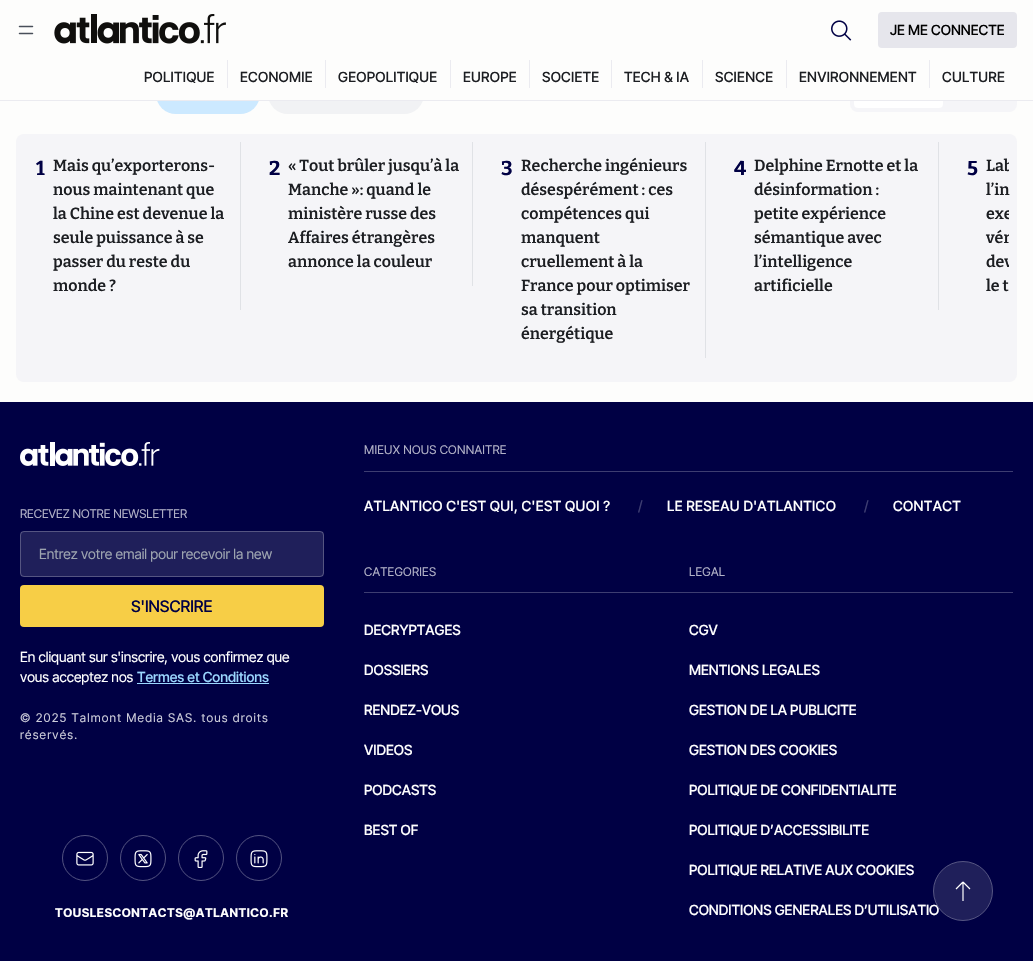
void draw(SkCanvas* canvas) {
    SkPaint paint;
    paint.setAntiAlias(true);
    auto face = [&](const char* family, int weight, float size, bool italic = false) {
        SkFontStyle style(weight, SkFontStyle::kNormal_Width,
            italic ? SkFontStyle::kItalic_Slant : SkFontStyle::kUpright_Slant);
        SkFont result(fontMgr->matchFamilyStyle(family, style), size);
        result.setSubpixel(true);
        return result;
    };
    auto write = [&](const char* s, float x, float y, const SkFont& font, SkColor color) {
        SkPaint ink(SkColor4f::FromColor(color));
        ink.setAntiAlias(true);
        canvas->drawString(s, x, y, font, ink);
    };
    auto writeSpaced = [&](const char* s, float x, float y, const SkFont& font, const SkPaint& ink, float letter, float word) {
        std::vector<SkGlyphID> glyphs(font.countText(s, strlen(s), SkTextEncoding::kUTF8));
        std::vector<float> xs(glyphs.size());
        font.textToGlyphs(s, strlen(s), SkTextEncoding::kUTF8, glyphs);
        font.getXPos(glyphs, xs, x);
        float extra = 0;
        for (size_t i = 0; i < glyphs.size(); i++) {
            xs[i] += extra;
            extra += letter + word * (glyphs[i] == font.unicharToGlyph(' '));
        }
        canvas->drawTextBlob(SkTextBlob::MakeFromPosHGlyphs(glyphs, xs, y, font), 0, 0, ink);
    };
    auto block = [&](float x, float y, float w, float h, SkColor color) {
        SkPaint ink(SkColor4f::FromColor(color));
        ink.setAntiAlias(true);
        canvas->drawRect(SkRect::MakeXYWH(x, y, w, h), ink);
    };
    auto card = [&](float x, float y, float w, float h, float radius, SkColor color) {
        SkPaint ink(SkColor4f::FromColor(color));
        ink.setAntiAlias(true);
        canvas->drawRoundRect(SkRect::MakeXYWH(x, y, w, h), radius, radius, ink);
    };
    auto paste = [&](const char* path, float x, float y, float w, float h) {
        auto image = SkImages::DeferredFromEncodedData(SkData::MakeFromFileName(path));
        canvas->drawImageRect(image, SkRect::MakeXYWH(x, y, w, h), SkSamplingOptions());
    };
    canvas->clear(SkColorSetRGB(253, 253, 252));
    card(156, 74, 104, 40, 20, SkColorSetRGB(204, 233, 255));
    card(268, 74, 156, 40, 20, SkColorSetRGB(241, 242, 244));
    card(850, 76, 167, 36, 8, SkColorSetRGB(245, 245, 248));
    card(854, 80, 89, 28, 4, SK_ColorWHITE);
    block(156, 74, 861, 26, SkColorSetRGB(253, 253, 252));
    block(0, 100, 1033, 1, SkColorSetRGB(235, 235, 240));
    paint.setStyle(SkPaint::kStroke_Style);
    paint.setStrokeWidth(1.5f);
    paint.setStrokeCap(SkPaint::kRound_Cap);
    paint.setStrokeJoin(SkPaint::kRound_Join);
    paint.setColor(SkColorSetRGB(73, 79, 90));
    canvas->drawPath(SkPathBuilder().moveTo(19.5f, 26.5f).lineTo(32.5f, 26.5f).moveTo(19.5f, 33.5f).lineTo(32.5f, 33.5f).detach(), paint);
    paste("pic1.png", 54, 14, 172, 30);
    paste("pic2.png", 831, 20, 21, 21);
    card(878, 12, 139, 36, 4, SkColorSetRGB(230, 230, 236));
    auto kFont1 = face("Inter Tight", 500, 14);
    write("JE ME CONNECTE", 890, 35, kFont1, SK_ColorBLACK);
    block(227, 60, 1, 28, SkColorSetRGB(235, 235, 240));
    paint.setStyle(SkPaint::kFill_Style);
    paint.setColor(SkColorSetRGB(28, 30, 34));
    writeSpaced("POLITIQUE", 144, 82, kFont1, paint, 0.25f, 0);
    block(325, 60, 1, 28, SkColorSetRGB(235, 235, 240));
    writeSpaced("ECONOMIE", 240, 82, kFont1, paint, 0.25f, 0);
    block(450, 60, 1, 28, SkColorSetRGB(235, 235, 240));
    writeSpaced("GEOPOLITIQUE", 338, 82, kFont1, paint, 0.25f, 0);
    block(529, 60, 1, 28, SkColorSetRGB(235, 235, 240));
    writeSpaced("EUROPE", 463, 82, kFont1, paint, 0.25f, 0);
    block(611, 60, 1, 28, SkColorSetRGB(235, 235, 240));
    writeSpaced("SOCIETE", 542, 82, kFont1, paint, 0.25f, 0);
    block(702, 60, 1, 28, SkColorSetRGB(235, 235, 240));
    writeSpaced("TECH & IA", 624, 82, kFont1, paint, 0.25f, 0);
    block(786, 60, 1, 28, SkColorSetRGB(235, 235, 240));
    writeSpaced("SCIENCE", 715, 82, kFont1, paint, 0.25f, 0);
    block(929, 60, 1, 28, SkColorSetRGB(235, 235, 240));
    writeSpaced("ENVIRONNEMENT", 799, 82, kFont1, paint, 0.25f, 0);
    writeSpaced("CULTURE", 942, 82, kFont1, paint, 0.25f, 0);
    card(16, 134, 1001, 248, 8, SkColorSetRGB(245, 245, 248));
    block(240, 142, 1, 168, SkColorSetRGB(224, 226, 230));
    auto kFont2 = face("Bitter", 700, 20);
    write("1", 36, 175, kFont2, SkColorSetRGB(0, 0, 68));
    auto kFont3 = face("Bitter", 600, 16);
    write("Mais qu’exporterons-", 53, 171, kFont3, SkColorSetRGB(28, 30, 34));
    write("nous maintenant que", 53, 195, kFont3, SkColorSetRGB(28, 30, 34));
    write("la Chine est devenue la", 53, 219, kFont3, SkColorSetRGB(28, 30, 34));
    write("seule puissance à se", 53, 243, kFont3, SkColorSetRGB(28, 30, 34));
    write("passer du reste du", 53, 267, kFont3, SkColorSetRGB(28, 30, 34));
    write("monde ?", 53, 291, kFont3, SkColorSetRGB(28, 30, 34));
    block(472, 142, 1, 144, SkColorSetRGB(224, 226, 230));
    write("2", 269, 175, kFont2, SkColorSetRGB(0, 0, 68));
    write("« Tout brûler jusqu’à la", 288, 171, kFont3, SkColorSetRGB(28, 30, 34));
    write("Manche »: quand le", 288, 195, kFont3, SkColorSetRGB(28, 30, 34));
    write("ministère russe des", 288, 219, kFont3, SkColorSetRGB(28, 30, 34));
    write("Affaires étrangères", 288, 243, kFont3, SkColorSetRGB(28, 30, 34));
    write("annonce la couleur", 288, 267, kFont3, SkColorSetRGB(28, 30, 34));
    block(705, 142, 1, 216, SkColorSetRGB(224, 226, 230));
    write("3", 501, 175, kFont2, SkColorSetRGB(0, 0, 68));
    write("Recherche ingénieurs", 521, 171, kFont3, SkColorSetRGB(28, 30, 34));
    write("désespérément : ces", 521, 195, kFont3, SkColorSetRGB(28, 30, 34));
    write("compétences qui", 521, 219, kFont3, SkColorSetRGB(28, 30, 34));
    write("manquent", 521, 243, kFont3, SkColorSetRGB(28, 30, 34));
    write("cruellement à la", 521, 267, kFont3, SkColorSetRGB(28, 30, 34));
    write("France pour optimiser", 521, 291, kFont3, SkColorSetRGB(28, 30, 34));
    write("sa transition", 521, 315, kFont3, SkColorSetRGB(28, 30, 34));
    write("énergétique", 521, 339, kFont3, SkColorSetRGB(28, 30, 34));
    block(938, 142, 1, 168, SkColorSetRGB(224, 226, 230));
    write("4", 734, 175, kFont2, SkColorSetRGB(0, 0, 68));
    write("Delphine Ernotte et la", 754, 171, kFont3, SkColorSetRGB(28, 30, 34));
    write("désinformation :", 754, 195, kFont3, SkColorSetRGB(28, 30, 34));
    write("petite expérience", 754, 219, kFont3, SkColorSetRGB(28, 30, 34));
    write("sémantique avec", 754, 243, kFont3, SkColorSetRGB(28, 30, 34));
    write("l’intelligence", 754, 267, kFont3, SkColorSetRGB(28, 30, 34));
    write("artificielle", 754, 291, kFont3, SkColorSetRGB(28, 30, 34));
    write("5", 967, 175, kFont2, SkColorSetRGB(0, 0, 68));
    canvas->save();
    canvas->clipRect(SkRect::MakeXYWH(24, 142, 985, 232));
    write("Lab", 986, 171, kFont3, SkColorSetRGB(28, 30, 34));
    canvas->restore();
    write("l’in", 986, 195, kFont3, SkColorSetRGB(28, 30, 34));
    canvas->save();
    canvas->clipRect(SkRect::MakeXYWH(24, 142, 985, 232));
    write("exe", 986, 219, kFont3, SkColorSetRGB(28, 30, 34));
    write("vér", 986, 243, kFont3, SkColorSetRGB(28, 30, 34));
    write("dev", 986, 267, kFont3, SkColorSetRGB(28, 30, 34));
    canvas->restore();
    write("le t", 986, 291, kFont3, SkColorSetRGB(28, 30, 34));
    block(0, 402, 1033, 559, SkColorSetRGB(0, 0, 68));
    paste("pic3.png", 20, 442, 140, 24);
    auto kFont4 = face("Inter Tight", 400, 12);
    write("RECEVEZ NOTRE NEWSLETTER", 20, 518, kFont4, SkColorSetRGB(178, 178, 199));
    card(20, 531, 304, 46, 4, SkColorSetRGB(31, 31, 90));
    paint.setStyle(SkPaint::kStroke_Style);
    paint.setStrokeWidth(1);
    paint.setStrokeCap(SkPaint::kButt_Cap);
    paint.setStrokeJoin(SkPaint::kMiter_Join);
    paint.setColor(SkColorSetARGB(61, 255, 255, 255));
    canvas->drawRoundRect(SkRect::MakeXYWH(20.5f, 531.5f, 303, 45), 3.5f, 3.5f, paint);
    auto kFont5 = face("Inter Tight", 400, 14);
    write("Entrez votre email pour recevoir la new", 39, 559, kFont5, SkColorSetRGB(156, 163, 175));
    card(20, 585, 304, 42, 4, SkColorSetRGB(247, 206, 70));
    auto kFont6 = face("Inter Tight", 500, 16);
    write("S'INSCRIRE", 131, 612, kFont6, SkColorSetRGB(0, 0, 68));
    write("En cliquant sur s'inscrire, vous confirmez que", 20, 662, kFont5, SK_ColorWHITE);
    write("vous acceptez nos", 20, 682, kFont5, SK_ColorWHITE);
    write("Termes et Conditions", 137, 682, kFont1, SkColorSetRGB(155, 215, 255));
    block(137, 683, 132, 1, SkColorSetRGB(155, 215, 255));
    paint.setStyle(SkPaint::kFill_Style);
    paint.setColor(SkColorSetRGB(204, 204, 218));
    writeSpaced("© 2025 Talmont Media SAS. tous droits", 20, 722, kFont4, paint, 1.2f, 0);
    writeSpaced("réservés.", 20, 739, kFont4, paint, 1.2f, 0);
    paint.setStyle(SkPaint::kStroke_Style);
    paint.setColor(SkColorSetRGB(82, 82, 128));
    canvas->drawCircle(85, 858, 22.5f, paint);
    paste("pic4.png", 76, 851, 18, 15);
    canvas->drawCircle(143, 858, 22.5f, paint);
    paste("pic5.png", 134, 850, 18, 18);
    canvas->drawCircle(201, 858, 22.5f, paint);
    paste("pic6.png", 194, 850, 14, 18);
    canvas->drawCircle(259, 858, 22.5f, paint);
    paste("pic7.png", 250, 850, 18, 18);
    auto kFont7 = face("Inter Tight", 700, 12);
    paint.setStyle(SkPaint::kFill_Style);
    paint.setColor(SK_ColorWHITE);
    writeSpaced("TOUSLESCONTACTS@ATLANTICO.FR", 55, 917, kFont7, paint, 0.6f, 0);
    block(364, 471, 649, 1, SkColorSetRGB(61, 61, 113));
    paint.setColor(SkColorSetRGB(178, 178, 199));
    writeSpaced("MIEUX NOUS CONNAITRE", 364, 454, kFont4, paint, 0.25f, 0);
    paint.setColor(SK_ColorWHITE);
    writeSpaced("ATLANTICO C'EST QUI, C'EST QUOI ?", 364, 511, kFont1, paint, 0.35f, 0);
    paint.setColor(SkColorSetRGB(61, 61, 113));
    writeSpaced("/", 638, 511, kFont1, paint, 0.35f, 0);
    paint.setColor(SK_ColorWHITE);
    writeSpaced("LE RESEAU D'ATLANTICO", 667, 511, kFont1, paint, 0.35f, 0);
    paint.setColor(SkColorSetRGB(61, 61, 113));
    writeSpaced("/", 864, 511, kFont1, paint, 0.35f, 0);
    paint.setColor(SK_ColorWHITE);
    writeSpaced("CONTACT", 893, 511, kFont1, paint, 0.35f, 0);
    block(364, 592, 649, 1, SkColorSetRGB(61, 61, 113));
    paint.setColor(SkColorSetRGB(178, 178, 199));
    writeSpaced("CATEGORIES", 364, 576, kFont4, paint, 0.25f, 0);
    write("DECRYPTAGES", 364, 635, kFont1, SK_ColorWHITE);
    write("DOSSIERS", 364, 675, kFont1, SK_ColorWHITE);
    write("RENDEZ-VOUS", 364, 715, kFont1, SK_ColorWHITE);
    write("VIDEOS", 364, 755, kFont1, SK_ColorWHITE);
    write("PODCASTS", 364, 795, kFont1, SK_ColorWHITE);
    write("BEST OF", 364, 835, kFont1, SK_ColorWHITE);
    writeSpaced("LEGAL", 689, 576, kFont4, paint, 0.25f, 0);
    write("CGV", 689, 635, kFont1, SK_ColorWHITE);
    write("MENTIONS LEGALES", 689, 675, kFont1, SK_ColorWHITE);
    write("GESTION DE LA PUBLICITE", 689, 715, kFont1, SK_ColorWHITE);
    write("GESTION DES COOKIES", 689, 755, kFont1, SK_ColorWHITE);
    write("POLITIQUE DE CONFIDENTIALITE", 689, 795, kFont1, SK_ColorWHITE);
    write("POLITIQUE D’ACCESSIBILITE", 689, 835, kFont1, SK_ColorWHITE);
    write("POLITIQUE RELATIVE AUX COOKIES", 689, 875, kFont1, SK_ColorWHITE);
    write("CONDITIONS GENERALES D’UTILISATIO", 689, 915, kFont1, SK_ColorWHITE);
    paint.setColor(SkColorSetRGB(31, 31, 90));
    canvas->drawCircle(963, 891, 29.5f, paint);
    paint.setStyle(SkPaint::kStroke_Style);
    paint.setColor(SkColorSetRGB(85, 85, 130));
    canvas->drawCircle(963, 891, 29.5f, paint);
    paint.setStrokeWidth(1.2f);
    paint.setColor(SK_ColorWHITE);
    canvas->drawPath(SkPathBuilder().moveTo(963, 882).lineTo(963, 901).moveTo(963, 882).lineTo(956, 889).moveTo(963, 882).lineTo(970, 889).detach(), paint);
}
